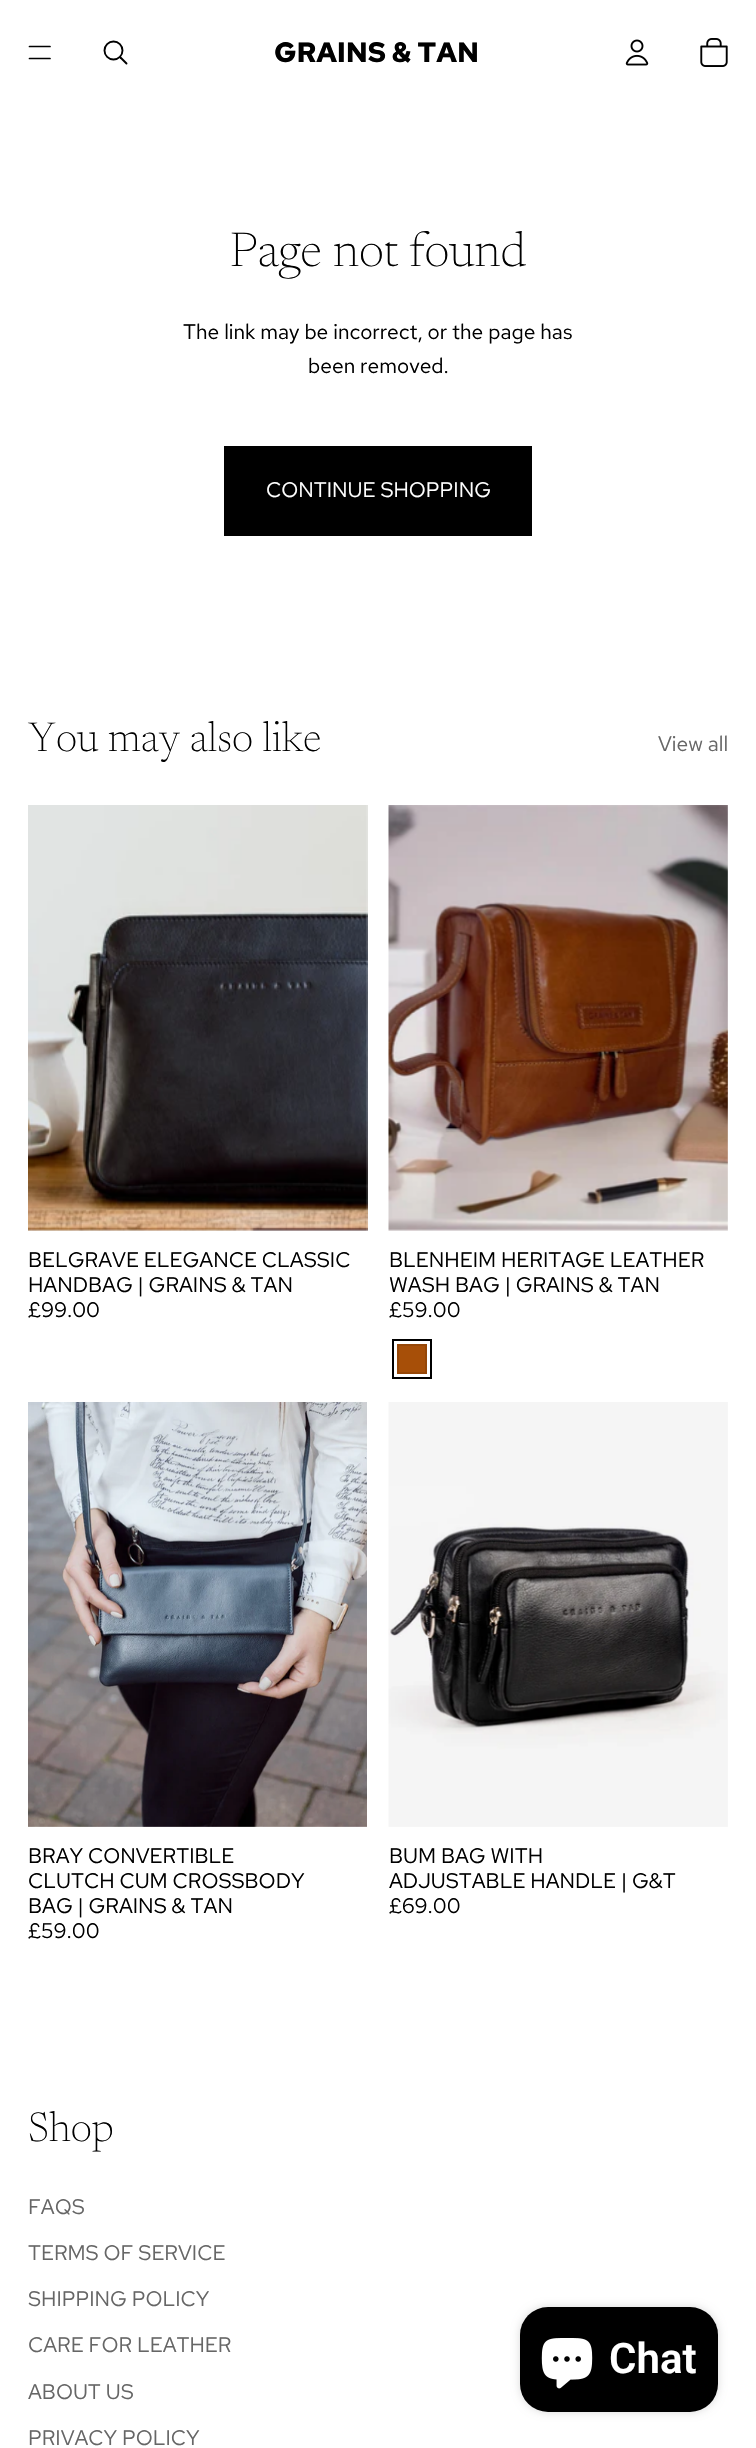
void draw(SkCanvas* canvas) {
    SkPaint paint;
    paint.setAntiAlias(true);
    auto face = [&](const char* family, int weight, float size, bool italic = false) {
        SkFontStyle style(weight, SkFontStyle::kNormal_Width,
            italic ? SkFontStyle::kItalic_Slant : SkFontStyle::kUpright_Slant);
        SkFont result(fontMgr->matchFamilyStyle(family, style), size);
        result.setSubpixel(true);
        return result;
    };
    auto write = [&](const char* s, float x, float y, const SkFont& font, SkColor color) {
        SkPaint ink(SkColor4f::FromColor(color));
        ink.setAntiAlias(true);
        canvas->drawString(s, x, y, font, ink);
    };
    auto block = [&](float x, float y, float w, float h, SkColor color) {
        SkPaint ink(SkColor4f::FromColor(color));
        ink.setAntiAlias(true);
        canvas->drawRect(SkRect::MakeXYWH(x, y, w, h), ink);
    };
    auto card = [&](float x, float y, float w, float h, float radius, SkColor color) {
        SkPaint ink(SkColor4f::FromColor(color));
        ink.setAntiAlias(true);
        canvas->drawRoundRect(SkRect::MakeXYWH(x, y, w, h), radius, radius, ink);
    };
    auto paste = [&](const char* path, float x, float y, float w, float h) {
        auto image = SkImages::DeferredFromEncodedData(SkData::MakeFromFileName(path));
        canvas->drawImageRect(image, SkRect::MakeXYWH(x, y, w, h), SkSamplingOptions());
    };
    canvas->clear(SK_ColorWHITE);
    paint.setStyle(SkPaint::kStroke_Style);
    paint.setStrokeWidth(1.7f);
    paint.setStrokeCap(SkPaint::kRound_Cap);
    paint.setColor(SK_ColorBLACK);
    canvas->drawPath(SkPathBuilder().moveTo(29.5f, 46.5f).lineTo(50, 46.5f).moveTo(29.5f, 58.5f).lineTo(50, 58.5f).detach(), paint);
    paint.setStrokeWidth(1.9f);
    paint.setStrokeCap(SkPaint::kButt_Cap);
    canvas->drawCircle(113.5f, 50.5f, 9, paint);
    paint.setStrokeCap(SkPaint::kRound_Cap);
    paint.setStrokeJoin(SkPaint::kRound_Join);
    canvas->drawPath(SkPathBuilder().moveTo(120.5f, 57.5f).lineTo(126.5f, 63.5f).detach(), paint);
    auto kFont1 = face("Red Hat Text", 700, 28);
    write("GRAINS & TAN", 274, 62, kFont1, SK_ColorBLACK);
    paste("pic1.png", 625, 39, 24, 27);
    paste("pic2.png", 700, 38, 28, 29);
    auto kFont2 = face("Newsreader", 200, 49);
    write("Page not found", 230, 266, kFont2, SK_ColorBLACK);
    auto kFont3 = face("Red Hat Text", 400, 21);
    write("The link may be incorrect, or the page has", 183, 339, kFont3, SK_ColorBLACK);
    write("been removed.", 308, 373, kFont3, SK_ColorBLACK);
    block(224, 446, 308, 90, SK_ColorBLACK);
    write("CONTINUE SHOPPING", 266, 497, kFont3, SK_ColorWHITE);
    auto kFont4 = face("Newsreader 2", 200, 42);
    write("You may also like", 28, 751, kFont4, SK_ColorBLACK);
    write("View all", 658, 751, kFont3, SkColorSetRGB(102, 102, 102));
    paste("pic3.png", 28, 805, 340, 426);
    write("BELGRAVE ELEGANCE CLASSIC", 28, 1267, kFont3, SK_ColorBLACK);
    write("HANDBAG | GRAINS & TAN", 28, 1292, kFont3, SK_ColorBLACK);
    write("£99.00", 28, 1317, kFont3, SK_ColorBLACK);
    paste("pic4.png", 388, 805, 340, 426);
    write("BLENHEIM HERITAGE LEATHER", 389, 1267, kFont3, SK_ColorBLACK);
    write("WASH BAG | GRAINS & TAN", 389, 1292, kFont3, SK_ColorBLACK);
    write("£59.00", 389, 1317, kFont3, SK_ColorBLACK);
    paint.setStyle(SkPaint::kFill_Style);
    paint.setColor(SkColorSetRGB(167, 79, 8));
    canvas->drawRect(SkRect::MakeXYWH(398, 1345, 28, 28), paint);
    paint.setStyle(SkPaint::kStroke_Style);
    paint.setStrokeWidth(2);
    paint.setStrokeCap(SkPaint::kButt_Cap);
    paint.setStrokeJoin(SkPaint::kMiter_Join);
    paint.setColor(SkColorSetRGB(150, 71, 7));
    canvas->drawRect(SkRect::MakeXYWH(398, 1345, 28, 28), paint);
    paint.setColor(SK_ColorBLACK);
    canvas->drawRect(SkRect::MakeXYWH(393, 1340, 38, 38), paint);
    paste("pic5.png", 28, 1402, 339, 425);
    write("BRAY CONVERTIBLE", 28, 1863, kFont3, SK_ColorBLACK);
    write("CLUTCH CUM CROSSBODY", 28, 1888, kFont3, SK_ColorBLACK);
    write("BAG | GRAINS & TAN", 28, 1913, kFont3, SK_ColorBLACK);
    write("£59.00", 28, 1938, kFont3, SK_ColorBLACK);
    paste("pic6.png", 388, 1402, 340, 425);
    write("BUM BAG WITH", 389, 1863, kFont3, SK_ColorBLACK);
    write("ADJUSTABLE HANDLE | G&T", 389, 1888, kFont3, SK_ColorBLACK);
    write("£69.00", 389, 1913, kFont3, SK_ColorBLACK);
    write("Shop", 28, 2141, kFont4, SK_ColorBLACK);
    write("FAQS", 28, 2214, kFont3, SkColorSetRGB(102, 102, 102));
    write("TERMS OF SERVICE", 28, 2260, kFont3, SkColorSetRGB(102, 102, 102));
    write("SHIPPING POLICY", 28, 2306, kFont3, SkColorSetRGB(102, 102, 102));
    write("CARE FOR LEATHER", 28, 2352, kFont3, SkColorSetRGB(102, 102, 102));
    write("ABOUT US", 28, 2399, kFont3, SkColorSetRGB(102, 102, 102));
    write("PRIVACY POLICY", 28, 2445, kFont3, SkColorSetRGB(102, 102, 102));
    paint.setStyle(SkPaint::kFill_Style);
    paint.setColor(SkColorSetARGB(38, 0, 0, 0));
    paint.setMaskFilter(SkMaskFilter::MakeBlur(kNormal_SkBlurStyle, 4.5f));
    canvas->drawRoundRect(SkRect::MakeXYWH(520, 2307, 198, 105), 28, 28, paint);
    paint.setMaskFilter(nullptr);
    card(520, 2307, 198, 105, 28, SK_ColorBLACK);
    paste("pic7.png", 541, 2338, 52, 51);
    auto kFont5 = face("Roboto", 600, 42);
    write("Chat", 609, 2373, kFont5, SK_ColorWHITE);
}
